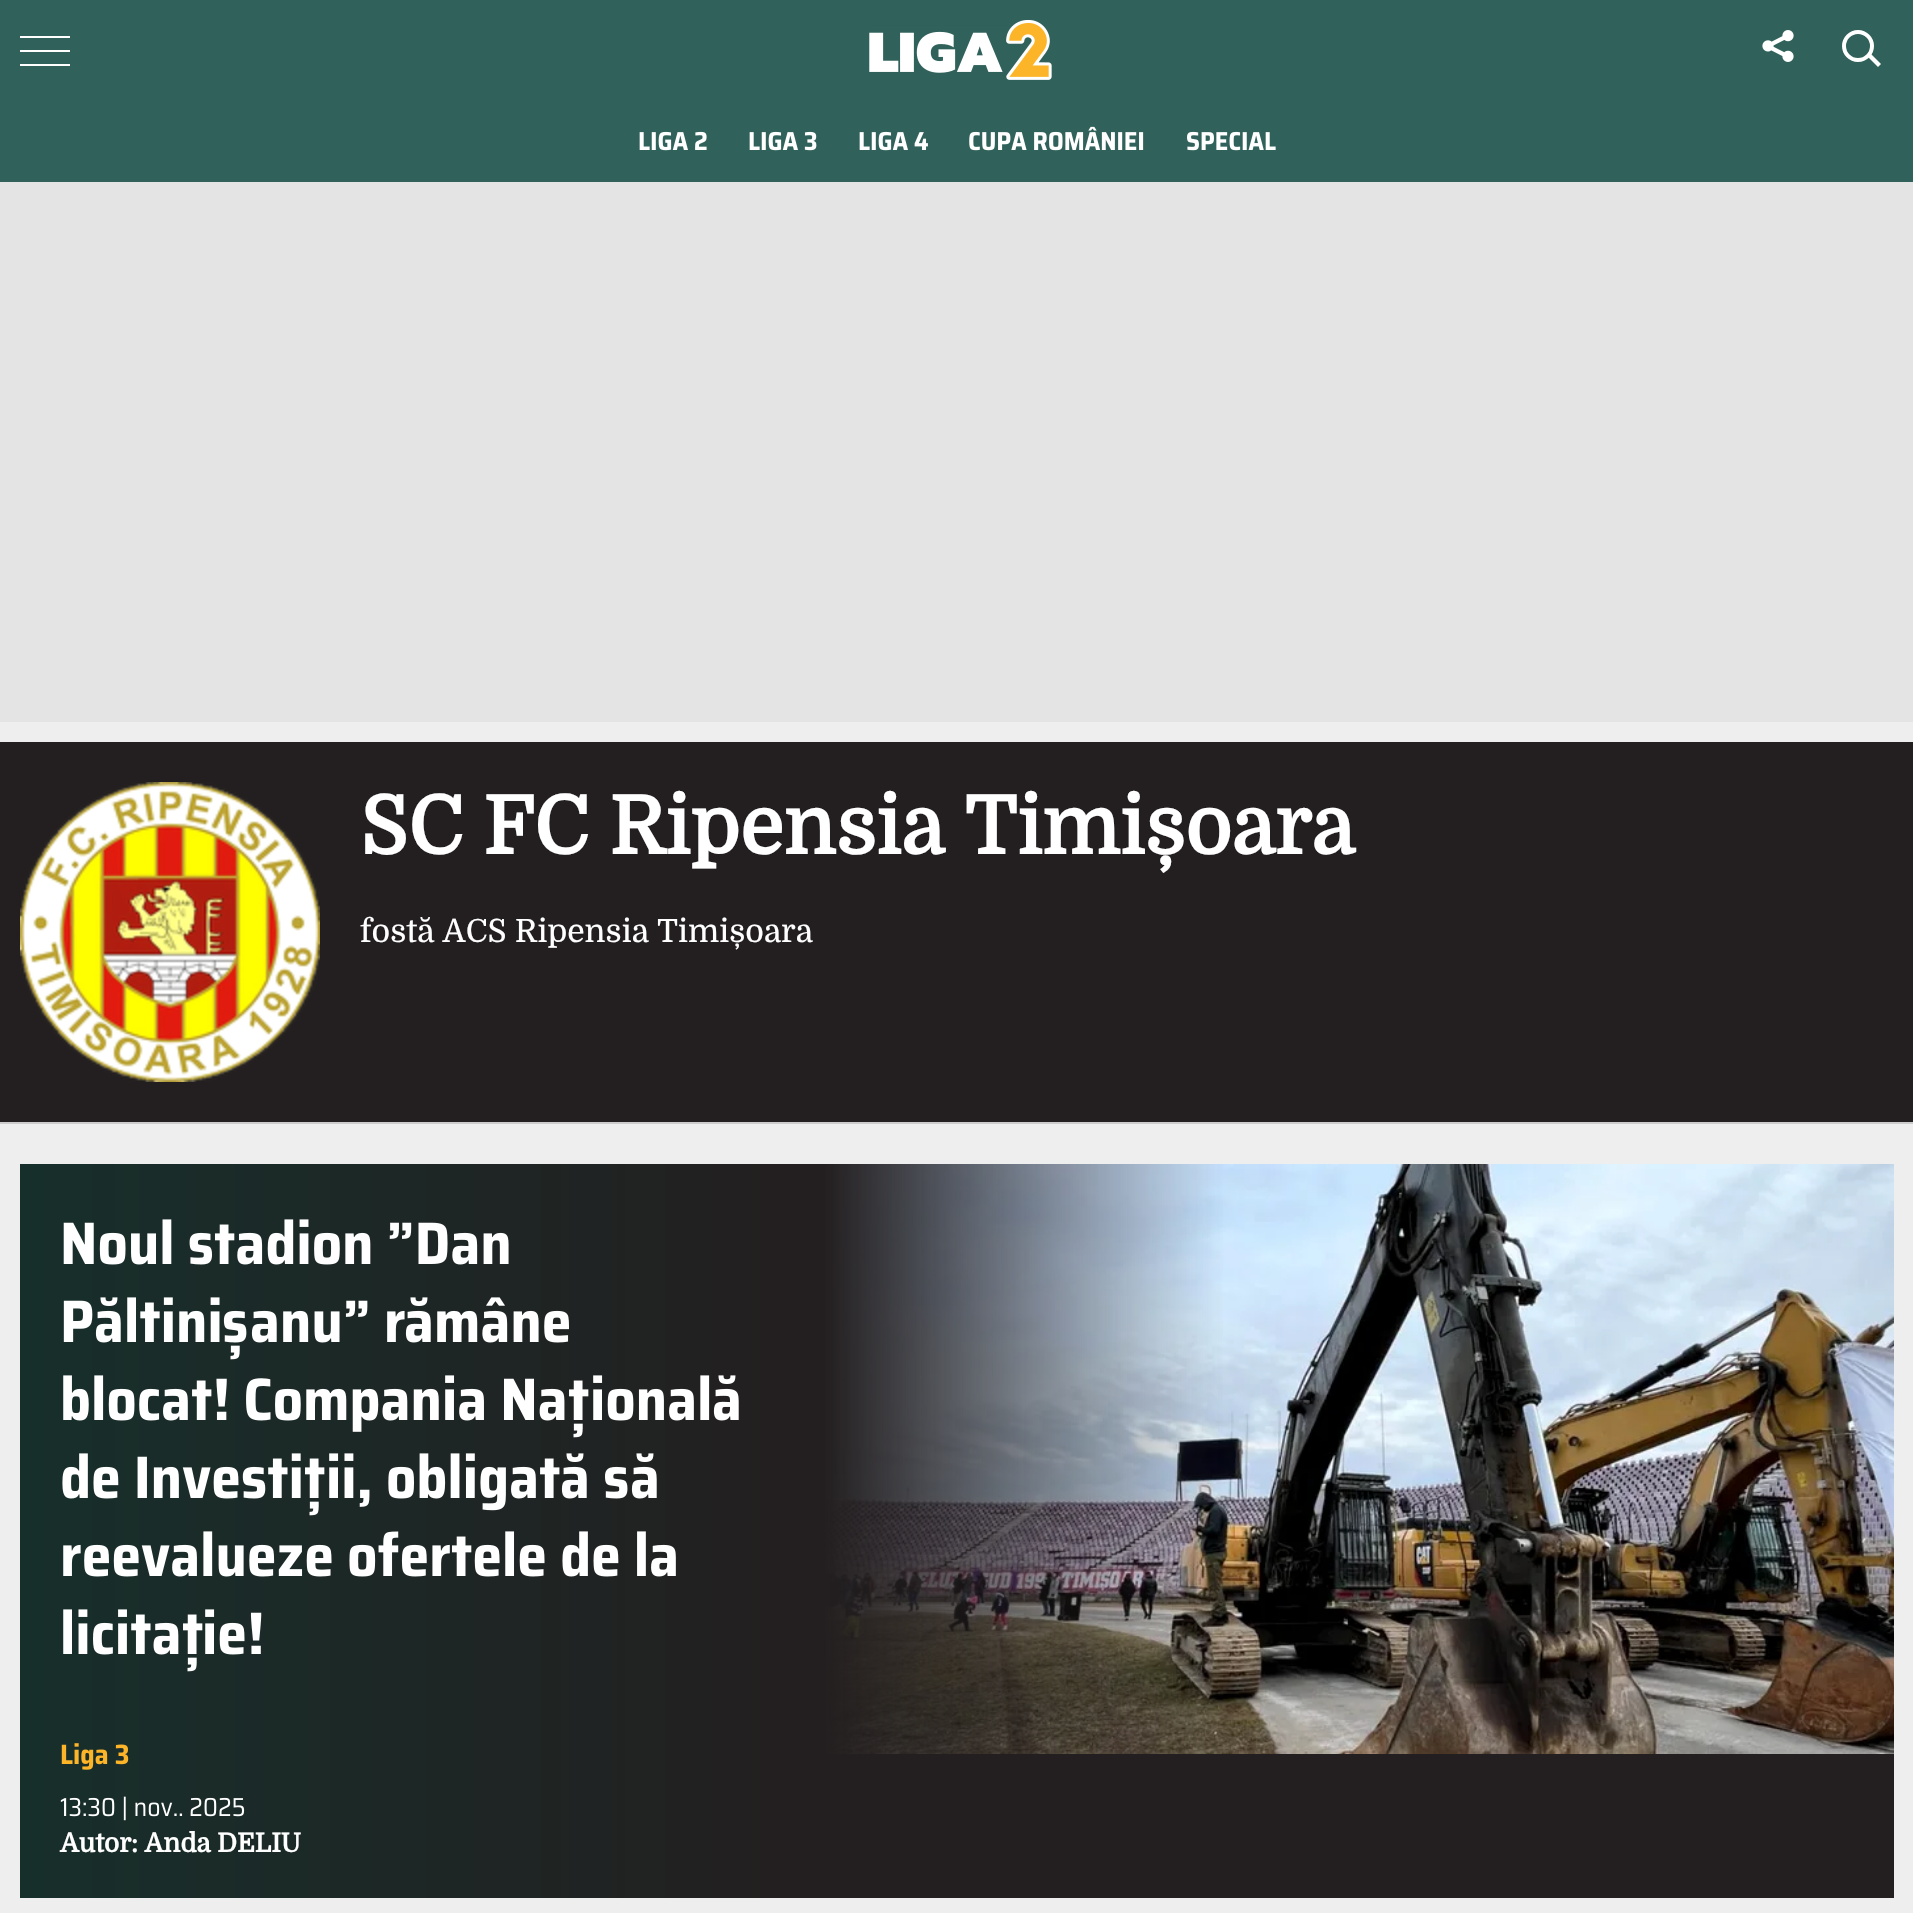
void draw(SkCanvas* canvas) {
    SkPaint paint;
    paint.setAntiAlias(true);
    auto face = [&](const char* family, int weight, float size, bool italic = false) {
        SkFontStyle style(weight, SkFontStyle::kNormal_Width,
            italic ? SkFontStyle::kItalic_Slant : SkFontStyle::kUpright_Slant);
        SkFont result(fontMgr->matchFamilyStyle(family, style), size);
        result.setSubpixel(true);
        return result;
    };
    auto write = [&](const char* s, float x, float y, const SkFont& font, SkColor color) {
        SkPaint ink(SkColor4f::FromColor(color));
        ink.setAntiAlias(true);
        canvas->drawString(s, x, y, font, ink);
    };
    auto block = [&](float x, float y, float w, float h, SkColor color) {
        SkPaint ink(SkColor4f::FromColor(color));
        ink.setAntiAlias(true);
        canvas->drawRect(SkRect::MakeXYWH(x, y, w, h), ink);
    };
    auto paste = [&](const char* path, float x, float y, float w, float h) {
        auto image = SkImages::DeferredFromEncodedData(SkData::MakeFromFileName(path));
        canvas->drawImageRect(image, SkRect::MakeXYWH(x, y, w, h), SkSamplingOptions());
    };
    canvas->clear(SkColorSetRGB(238, 238, 238));
    block(0, 0, 1913, 182, SkColorSetRGB(48, 98, 91));
    block(20, 50, 50, 2, SK_ColorWHITE);
    block(20, 36, 50, 2, SK_ColorWHITE);
    block(20, 64, 50, 2, SK_ColorWHITE);
    paste("pic1.png", 869, 20, 183, 60);
    paste("pic2.png", 1762, 30, 32, 32);
    paint.setStyle(SkPaint::kStroke_Style);
    paint.setStrokeWidth(4);
    paint.setColor(SK_ColorWHITE);
    canvas->drawCircle(1858, 46, 14, paint);
    paint.setStyle(SkPaint::kFill_Style);
    canvas->drawPath(SkPathBuilder().moveTo(1867, 56).lineTo(1870, 53).lineTo(1881, 64).lineTo(1878, 67).close().detach(), paint);
    paste("pic3.png", 639, 131, 68, 20);
    paste("pic4.png", 749, 131, 68, 20);
    paste("pic5.png", 859, 131, 69, 20);
    paste("pic6.png", 969, 126, 175, 25);
    paste("pic7.png", 1187, 131, 89, 20);
    block(0, 182, 1913, 540, SkColorSetRGB(228, 228, 228));
    block(0, 742, 1913, 380, SkColorSetRGB(35, 31, 32));
    block(0, 1122, 1913, 2, SkColorSetRGB(204, 204, 204));
    paste("pic8.png", 20, 782, 300, 300);
    auto kFont1 = face("Domine", 700, 80);
    write("SC FC Ripensia Timișoara", 360, 854, kFont1, SK_ColorWHITE);
    auto kFont2 = face("Domine", 400, 32);
    write("fostă ACS Ripensia Timișoara", 360, 942, kFont2, SK_ColorWHITE);
    block(784, 1164, 1110, 734, SkColorSetRGB(35, 31, 32));
    paste("pic9.png", 824, 1164, 1070, 590);
    {
        const SkColor colors[] = {SkColorSetRGB(23, 47, 43), SkColorSetRGB(35, 31, 32)};
        const float stops[] = {0, 1};
        const SkPoint ends[] = {{20, 1531}, {784, 1531}};
        paint.setShader(SkGradientShader::MakeLinear(ends, colors, stops, 2, SkTileMode::kClamp));
        paint.setAlpha(255);
    }
    canvas->drawRect(SkRect::MakeXYWH(20, 1164, 764, 734), paint);
    paste("pic10.png", 63, 1219, 446, 46);
    paste("pic11.png", 63, 1300, 30, 42);
    paste("pic12.png", 95, 1297, 26, 46);
    paste("pic13.png", 127, 1297, 93, 45);
    paste("pic14.png", 223, 1310, 24, 50);
    paste("pic15.png", 251, 1300, 154, 43);
    paste("pic16.png", 405, 1297, 26, 46);
    paste("pic17.png", 437, 1297, 132, 46);
    paste("pic18.png", 63, 1375, 502, 57);
    paste("pic19.png", 569, 1380, 20, 58);
    paste("pic20.png", 593, 1375, 117, 46);
    paste("pic21.png", 713, 1375, 26, 46);
    paste("pic22.png", 62, 1453, 239, 46);
    paste("pic23.png", 305, 1458, 20, 58);
    paste("pic24.png", 329, 1453, 231, 58);
    paste("pic25.png", 561, 1453, 26, 46);
    paste("pic26.png", 605, 1466, 23, 33);
    paste("pic27.png", 631, 1453, 26, 46);
    paste("pic28.png", 63, 1531, 613, 46);
    paste("pic29.png", 63, 1609, 116, 46);
    paste("pic30.png", 183, 1614, 20, 58);
    paste("pic31.png", 205, 1609, 57, 46);
    paste("pic32.png", 61, 1743, 68, 27);
    paste("pic33.png", 60, 1796, 185, 25);
    auto kFont3 = face("Domine", 700, 26);
    write("Autor: Anda DELIU", 60, 1852, kFont3, SK_ColorWHITE);
}
